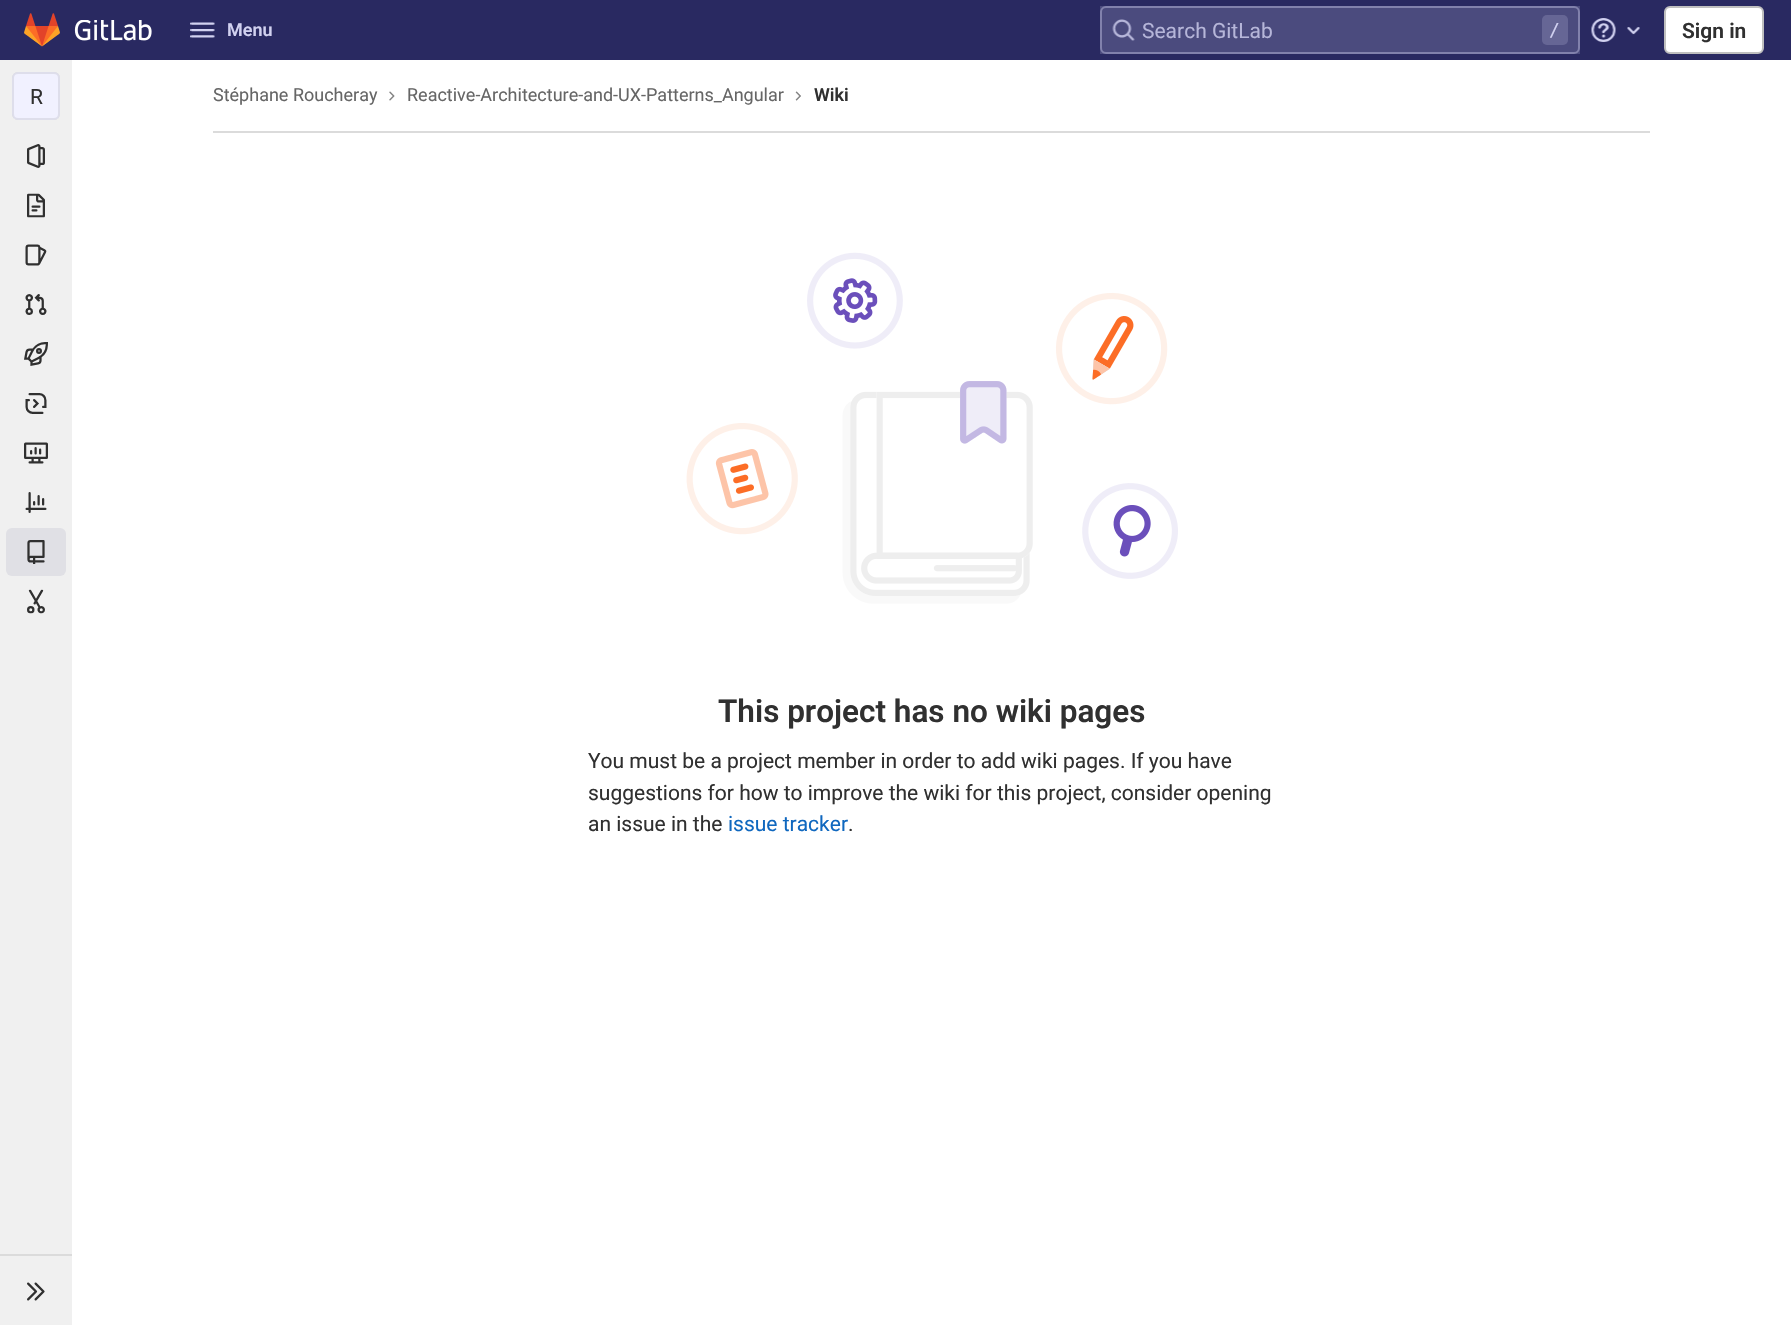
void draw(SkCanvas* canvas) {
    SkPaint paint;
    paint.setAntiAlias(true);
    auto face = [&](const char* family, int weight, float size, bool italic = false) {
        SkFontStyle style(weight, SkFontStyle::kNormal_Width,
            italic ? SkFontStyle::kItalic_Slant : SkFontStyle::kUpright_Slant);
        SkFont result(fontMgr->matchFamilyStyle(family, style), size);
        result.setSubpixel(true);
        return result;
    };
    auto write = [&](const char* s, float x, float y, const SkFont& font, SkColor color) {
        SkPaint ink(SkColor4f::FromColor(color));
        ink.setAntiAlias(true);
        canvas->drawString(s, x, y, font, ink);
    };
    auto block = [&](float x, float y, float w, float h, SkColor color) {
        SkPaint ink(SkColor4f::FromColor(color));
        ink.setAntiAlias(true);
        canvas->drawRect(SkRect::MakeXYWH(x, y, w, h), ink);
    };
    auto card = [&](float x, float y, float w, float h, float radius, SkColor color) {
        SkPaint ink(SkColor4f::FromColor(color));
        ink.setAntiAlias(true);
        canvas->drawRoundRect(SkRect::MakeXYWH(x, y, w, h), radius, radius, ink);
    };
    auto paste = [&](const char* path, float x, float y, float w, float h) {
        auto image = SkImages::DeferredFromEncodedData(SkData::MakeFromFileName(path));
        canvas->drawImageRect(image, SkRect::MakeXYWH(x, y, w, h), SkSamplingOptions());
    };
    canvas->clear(SK_ColorWHITE);
    block(0, 0, 1791, 60, SkColorSetRGB(41, 41, 97));
    paste("pic1.png", 24, 13, 36, 34);
    paste("pic2.png", 74, 20, 78, 21);
    paste("pic3.png", 190, 22, 25, 16);
    auto kFont1 = face("Roboto", 600, 18);
    write("Menu", 227, 36, kFont1, SkColorSetRGB(209, 209, 240));
    block(1100, 6, 480, 48, SkColorSetRGB(75, 75, 126));
    paint.setStyle(SkPaint::kStroke_Style);
    paint.setStrokeWidth(2);
    paint.setColor(SkColorSetRGB(129, 129, 172));
    canvas->drawRoundRect(SkRect::MakeXYWH(1101, 7, 478, 46), 5, 5, paint);
    paste("pic4.png", 1112, 19, 23, 22);
    auto kFont2 = face("Roboto", 400, 21);
    write("Search GitLab", 1142, 38, kFont2, SkColorSetRGB(182, 182, 217));
    card(1542, 15, 26, 30, 5, SkColorSetRGB(102, 102, 149));
    auto kFont3 = face("DejaVu Sans Mono", 400, 18);
    write("/", 1549, 36, kFont3, SkColorSetRGB(209, 209, 240));
    paste("pic5.png", 1591, 18, 25, 24);
    paste("pic6.png", 1627, 27, 13, 8);
    paint.setStyle(SkPaint::kFill_Style);
    paint.setColor(SK_ColorWHITE);
    canvas->drawRoundRect(SkRect::MakeXYWH(1665, 7, 98, 46), 5, 5, paint);
    paint.setStyle(SkPaint::kStroke_Style);
    paint.setColor(SkColorSetRGB(191, 191, 191));
    canvas->drawRoundRect(SkRect::MakeXYWH(1665, 7, 98, 46), 5, 5, paint);
    auto kFont4 = face("Roboto", 600, 21);
    write("Sign in", 1682, 38, kFont4, SkColorSetRGB(48, 48, 48));
    block(0, 60, 72, 1265, SkColorSetRGB(240, 240, 240));
    paint.setColor(SkColorSetARGB(20, 0, 0, 0));
    canvas->drawRoundRect(SkRect::MakeXYWH(13, 73, 46, 46), 5, 5, paint);
    card(12, 72, 48, 48, 6, SkColorSetRGB(241, 241, 255));
    canvas->drawRoundRect(SkRect::MakeXYWH(13, 73, 46, 46), 5, 5, paint);
    write("R", 30, 104, kFont2, SkColorSetRGB(48, 48, 48));
    paste("pic7.png", 27, 144, 18, 24);
    paste("pic8.png", 27, 193, 18, 25);
    paste("pic9.png", 25, 244, 22, 22);
    paste("pic10.png", 25, 294, 22, 21);
    paste("pic11.png", 24, 342, 24, 24);
    paste("pic12.png", 25, 393, 22, 21);
    paste("pic13.png", 24, 442, 24, 22);
    paste("pic14.png", 25, 492, 22, 21);
    card(6, 528, 60, 48, 6, SkColorSetRGB(224, 224, 229));
    paste("pic15.png", 27, 540, 18, 24);
    paste("pic16.png", 27, 589, 18, 25);
    block(0, 1254, 72, 2, SkColorSetRGB(219, 219, 219));
    paste("pic17.png", 27, 1282, 18, 19);
    block(213, 131, 1437, 2, SkColorSetRGB(219, 219, 219));
    auto kFont5 = face("Roboto", 400, 18);
    write("Stéphane Roucheray", 213, 101, kFont5, SkColorSetRGB(102, 102, 102));
    paste("pic18.png", 389, 91, 6, 10);
    write("Reactive-Architecture-and-UX-Patterns_Angular", 407, 101, kFont5, SkColorSetRGB(102, 102, 102));
    paste("pic19.png", 795, 91, 6, 10);
    write("Wiki", 814, 101, kFont1, SkColorSetRGB(48, 48, 48));
    paste("pic20.png", 686, 252, 492, 352);
    auto kFont6 = face("Roboto", 600, 31.5f);
    write("This project has no wiki pages", 718, 722, kFont6, SkColorSetRGB(48, 48, 48));
    write("You must be a project member in order to add wiki pages. If you have", 588, 768, kFont2, SkColorSetRGB(48, 48, 48));
    write("suggestions for how to improve the wiki for this project, consider opening", 588, 800, kFont2, SkColorSetRGB(48, 48, 48));
    write("an issue in the", 588, 831, kFont2, SkColorSetRGB(48, 48, 48));
    write("issue tracker", 728, 831, kFont2, SkColorSetRGB(16, 104, 191));
    write(".", 848, 831, kFont2, SkColorSetRGB(48, 48, 48));
}
